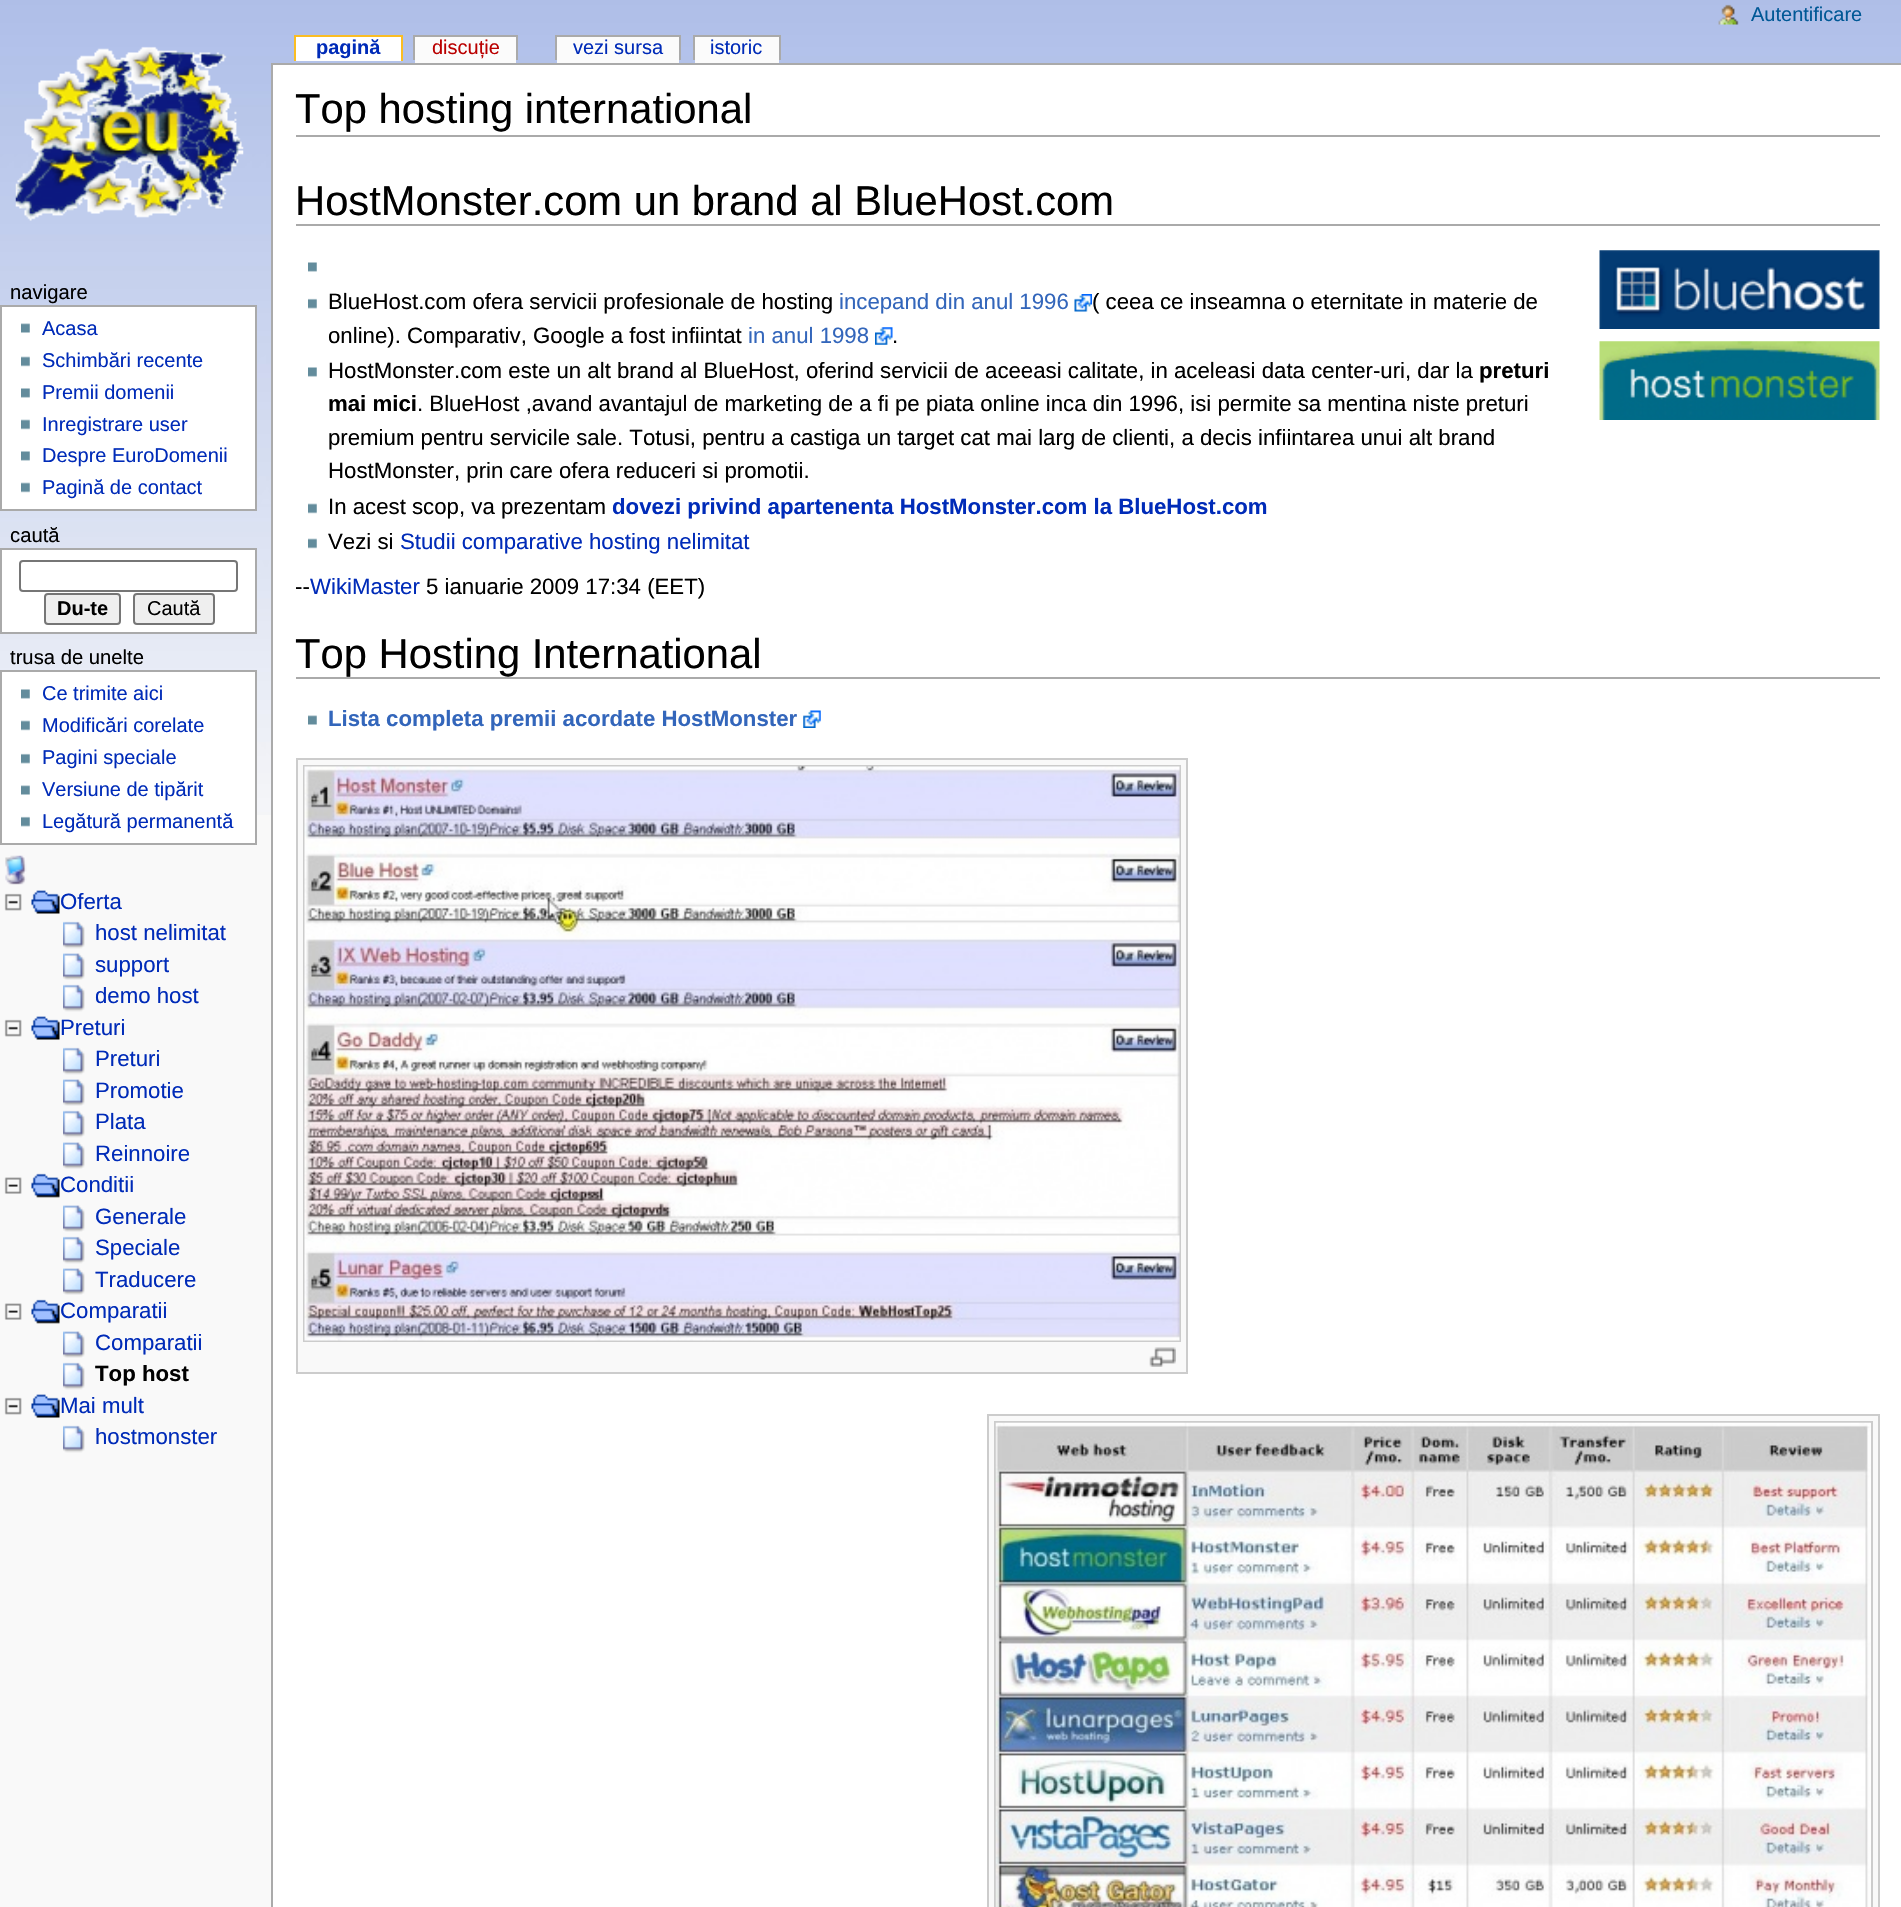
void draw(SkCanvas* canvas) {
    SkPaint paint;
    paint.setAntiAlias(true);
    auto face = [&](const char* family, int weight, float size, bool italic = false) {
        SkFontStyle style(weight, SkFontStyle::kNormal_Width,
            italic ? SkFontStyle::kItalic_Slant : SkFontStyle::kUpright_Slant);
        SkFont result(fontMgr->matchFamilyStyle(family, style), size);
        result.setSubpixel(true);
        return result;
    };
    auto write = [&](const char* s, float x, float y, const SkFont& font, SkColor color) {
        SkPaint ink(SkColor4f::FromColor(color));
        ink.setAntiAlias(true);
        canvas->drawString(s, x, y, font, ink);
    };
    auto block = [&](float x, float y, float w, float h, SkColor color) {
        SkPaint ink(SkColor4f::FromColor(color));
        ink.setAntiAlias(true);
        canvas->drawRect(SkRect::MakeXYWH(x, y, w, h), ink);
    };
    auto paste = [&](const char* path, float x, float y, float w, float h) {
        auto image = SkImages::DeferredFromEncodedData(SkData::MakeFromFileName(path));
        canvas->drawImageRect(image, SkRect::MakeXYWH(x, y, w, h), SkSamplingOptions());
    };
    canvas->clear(SkColorSetRGB(249, 249, 249));
    paste("pic1.png", 0, 0, 1901, 815);
    paste("pic2.png", 1718, 4, 21, 21);
    auto kFont1 = face("Liberation Sans", 400, 20);
    write("Autentificare", 1751, 21, kFont1, SkColorSetRGB(0, 88, 150));
    paste("pic3.png", 15, 46, 229, 175);
    block(296, 37, 105, 24, SK_ColorWHITE);
    auto kFont2 = face("Liberation Sans", 700, 20);
    write("pagină", 316, 54, kFont2, SkColorSetRGB(0, 43, 184));
    block(294, 35, 109, 2, SkColorSetRGB(250, 189, 35));
    block(401, 35, 2, 26, SkColorSetRGB(250, 189, 35));
    block(294, 35, 2, 26, SkColorSetRGB(250, 189, 35));
    block(415, 37, 101, 26, SkColorSetRGB(251, 251, 251));
    write("discuție", 432, 54, kFont1, SkColorSetRGB(186, 0, 0));
    block(413, 35, 105, 2, SkColorSetRGB(170, 170, 170));
    block(516, 35, 2, 25, SkColorSetRGB(170, 170, 170));
    block(413, 35, 2, 25, SkColorSetRGB(170, 170, 170));
    block(557, 37, 122, 26, SkColorSetRGB(251, 251, 251));
    write("vezi sursa", 573, 54, kFont1, SkColorSetRGB(0, 43, 184));
    block(555, 35, 126, 2, SkColorSetRGB(170, 170, 170));
    block(679, 35, 2, 25, SkColorSetRGB(170, 170, 170));
    block(555, 35, 2, 25, SkColorSetRGB(170, 170, 170));
    block(695, 37, 84, 26, SkColorSetRGB(251, 251, 251));
    write("istoric", 710, 54, kFont1, SkColorSetRGB(0, 43, 184));
    block(693, 35, 88, 2, SkColorSetRGB(170, 170, 170));
    block(779, 35, 2, 25, SkColorSetRGB(170, 170, 170));
    block(693, 35, 2, 25, SkColorSetRGB(170, 170, 170));
    auto kFont3 = face("Liberation Sans", 400, 20.25f);
    write("navigare", 10, 299, kFont3, SK_ColorBLACK);
    paint.setColor(SK_ColorWHITE);
    canvas->drawRect(SkRect::MakeXYWH(1, 306, 255, 204), paint);
    paint.setStyle(SkPaint::kStroke_Style);
    paint.setStrokeWidth(2);
    paint.setColor(SkColorSetRGB(170, 170, 170));
    canvas->drawRect(SkRect::MakeXYWH(1, 306, 255, 204), paint);
    paste("pic4.png", 21, 323, 9, 10);
    write("Acasa", 42, 335, kFont1, SkColorSetRGB(0, 43, 184));
    paste("pic5.png", 21, 356, 9, 11);
    write("Schimbări recente", 42, 367, kFont1, SkColorSetRGB(0, 43, 184));
    paste("pic6.png", 21, 388, 9, 10);
    write("Premii domenii", 42, 399, kFont1, SkColorSetRGB(0, 43, 184));
    paste("pic5.png", 21, 419, 9, 11);
    write("Inregistrare user", 42, 431, kFont1, SkColorSetRGB(0, 43, 184));
    paste("pic6.png", 21, 451, 9, 10);
    write("Despre EuroDomenii", 42, 462, kFont1, SkColorSetRGB(0, 43, 184));
    paste("pic5.png", 21, 482, 9, 11);
    write("Pagină de contact", 42, 494, kFont1, SkColorSetRGB(0, 43, 184));
    write("caută", 10, 542, kFont3, SK_ColorBLACK);
    paint.setStyle(SkPaint::kFill_Style);
    paint.setColor(SK_ColorWHITE);
    canvas->drawRect(SkRect::MakeXYWH(1, 549, 255, 84), paint);
    paint.setStyle(SkPaint::kStroke_Style);
    paint.setColor(SkColorSetRGB(170, 170, 170));
    canvas->drawRect(SkRect::MakeXYWH(1, 549, 255, 84), paint);
    paint.setColor(SkColorSetRGB(118, 118, 118));
    canvas->drawRoundRect(SkRect::MakeXYWH(20, 561, 217, 30), 3, 3, paint);
    paint.setStyle(SkPaint::kFill_Style);
    paint.setColor(SkColorSetRGB(239, 239, 239));
    canvas->drawRoundRect(SkRect::MakeXYWH(45, 594, 75, 30), 3, 3, paint);
    paint.setStyle(SkPaint::kStroke_Style);
    paint.setColor(SkColorSetRGB(118, 118, 118));
    canvas->drawRoundRect(SkRect::MakeXYWH(45, 594, 75, 30), 3, 3, paint);
    write("Du-te", 57, 615, kFont2, SK_ColorBLACK);
    paint.setStyle(SkPaint::kFill_Style);
    paint.setColor(SkColorSetRGB(239, 239, 239));
    canvas->drawRoundRect(SkRect::MakeXYWH(134, 594, 80, 30), 3, 3, paint);
    paint.setStyle(SkPaint::kStroke_Style);
    paint.setColor(SkColorSetRGB(118, 118, 118));
    canvas->drawRoundRect(SkRect::MakeXYWH(134, 594, 80, 30), 3, 3, paint);
    write("Caută", 147, 615, kFont1, SK_ColorBLACK);
    write("trusa de unelte", 10, 664, kFont3, SK_ColorBLACK);
    paint.setStyle(SkPaint::kFill_Style);
    paint.setColor(SK_ColorWHITE);
    canvas->drawRect(SkRect::MakeXYWH(1, 671, 255, 173), paint);
    paint.setStyle(SkPaint::kStroke_Style);
    paint.setColor(SkColorSetRGB(170, 170, 170));
    canvas->drawRect(SkRect::MakeXYWH(1, 671, 255, 173), paint);
    paste("pic6.png", 21, 689, 9, 10);
    write("Ce trimite aici", 42, 700, kFont1, SkColorSetRGB(0, 43, 184));
    paste("pic5.png", 21, 720, 9, 11);
    write("Modificări corelate", 42, 732, kFont1, SkColorSetRGB(0, 43, 184));
    paste("pic7.png", 21, 753, 9, 11);
    write("Pagini speciale", 42, 764, kFont1, SkColorSetRGB(0, 43, 184));
    paste("pic4.png", 21, 785, 9, 10);
    write("Versiune de tipărit", 42, 796, kFont1, SkColorSetRGB(0, 43, 184));
    paste("pic7.png", 21, 816, 9, 11);
    write("Legătură permanentă", 42, 828, kFont1, SkColorSetRGB(0, 43, 184));
    paste("pic8.png", 5, 855, 22, 30);
    paste("pic9.png", 4, 893, 18, 18);
    paste("pic10.png", 31, 890, 29, 24);
    auto kFont4 = face("Liberation Sans", 400, 22.22f);
    write("Oferta", 60, 909, kFont4, SkColorSetRGB(0, 43, 184));
    paste("pic11.png", 63, 921, 22, 28);
    write("host nelimitat", 95, 940, kFont4, SkColorSetRGB(0, 43, 184));
    paste("pic12.png", 63, 953, 22, 27);
    write("support", 95, 972, kFont4, SkColorSetRGB(0, 43, 184));
    paste("pic11.png", 63, 984, 22, 28);
    write("demo host", 95, 1003, kFont4, SkColorSetRGB(0, 43, 184));
    paste("pic9.png", 4, 1019, 18, 18);
    paste("pic10.png", 31, 1016, 29, 24);
    write("Preturi", 60, 1035, kFont4, SkColorSetRGB(0, 43, 184));
    paste("pic11.png", 63, 1047, 22, 28);
    write("Preturi", 95, 1066, kFont4, SkColorSetRGB(0, 43, 184));
    paste("pic12.png", 63, 1079, 22, 27);
    write("Promotie", 95, 1098, kFont4, SkColorSetRGB(0, 43, 184));
    paste("pic11.png", 63, 1110, 22, 28);
    write("Plata", 95, 1129, kFont4, SkColorSetRGB(0, 43, 184));
    paste("pic12.png", 63, 1142, 22, 27);
    write("Reinnoire", 95, 1161, kFont4, SkColorSetRGB(0, 43, 184));
    paste("pic13.png", 4, 1177, 18, 17);
    paste("pic14.png", 31, 1173, 29, 25);
    write("Conditii", 60, 1192, kFont4, SkColorSetRGB(0, 43, 184));
    paste("pic12.png", 63, 1205, 22, 27);
    write("Generale", 95, 1224, kFont4, SkColorSetRGB(0, 43, 184));
    paste("pic11.png", 63, 1236, 22, 28);
    write("Speciale", 95, 1255, kFont4, SkColorSetRGB(0, 43, 184));
    paste("pic12.png", 63, 1268, 22, 27);
    write("Traducere", 95, 1287, kFont4, SkColorSetRGB(0, 43, 184));
    paste("pic13.png", 4, 1303, 18, 17);
    paste("pic14.png", 31, 1299, 29, 25);
    write("Comparatii", 60, 1318, kFont4, SkColorSetRGB(0, 43, 184));
    paste("pic12.png", 63, 1331, 22, 27);
    write("Comparatii", 95, 1350, kFont4, SkColorSetRGB(0, 43, 184));
    paste("pic11.png", 63, 1362, 22, 28);
    auto kFont5 = face("Liberation Sans", 700, 22.22f);
    write("Top host", 95, 1381, kFont5, SK_ColorBLACK);
    paste("pic9.png", 4, 1397, 18, 18);
    paste("pic10.png", 31, 1394, 29, 24);
    write("Mai mult", 60, 1413, kFont4, SkColorSetRGB(0, 43, 184));
    paste("pic11.png", 63, 1425, 22, 28);
    write("hostmonster", 95, 1444, kFont4, SkColorSetRGB(0, 43, 184));
    block(273, 65, 1628, 1842, SK_ColorWHITE);
    block(271, 63, 1630, 2, SkColorSetRGB(170, 170, 170));
    block(271, 63, 2, 1844, SkColorSetRGB(170, 170, 170));
    block(296, 135, 1584, 2, SkColorSetRGB(170, 170, 170));
    auto kFont6 = face("Liberation Sans", 400, 41.75f);
    write("Top hosting international", 295, 123, kFont6, SK_ColorBLACK);
    block(296, 224, 1584, 2, SkColorSetRGB(170, 170, 170));
    write("HostMonster.com un brand al BlueHost.com", 295, 215, kFont6, SK_ColorBLACK);
    paste("pic6.png", 308, 262, 9, 10);
    paste("pic15.png", 1599, 250, 281, 79);
    paste("pic16.png", 1599, 341, 281, 79);
    paste("pic7.png", 308, 298, 9, 11);
    write("BlueHost.com ofera servicii profesionale de hosting", 328, 309, kFont4, SK_ColorBLACK);
    write("incepand din anul 1996", 839, 309, kFont4, SkColorSetRGB(51, 102, 187));
    paste("pic17.png", 1074, 294, 18, 18);
    write("( ceea ce inseamna o eternitate in materie de", 1092, 309, kFont4, SK_ColorBLACK);
    write("online). Comparativ, Google a fost infiintat", 328, 343, kFont4, SK_ColorBLACK);
    write("in anul 1998", 748, 343, kFont4, SkColorSetRGB(51, 102, 187));
    paste("pic18.png", 875, 327, 18, 18);
    write(".", 892, 343, kFont4, SK_ColorBLACK);
    paste("pic6.png", 308, 367, 9, 10);
    write("HostMonster.com este un alt brand al BlueHost, oferind servicii de aceeasi calitate, in aceleasi data center-uri, dar la", 328, 378, kFont4, SK_ColorBLACK);
    write("preturi", 1479, 378, kFont5, SK_ColorBLACK);
    write("mai mici", 328, 411, kFont5, SK_ColorBLACK);
    write(". BlueHost ,avand avantajul de marketing de a fi pe piata online inca din 1996, isi permite sa mentina niste preturi", 417, 411, kFont4, SK_ColorBLACK);
    write("premium pentru servicile sale. Totusi, pentru a castiga un target cat mai larg de clienti, a decis infiintarea unui alt brand", 328, 445, kFont4, SK_ColorBLACK);
    write("HostMonster, prin care ofera reduceri si promotii.", 328, 478, kFont4, SK_ColorBLACK);
    paste("pic5.png", 308, 503, 9, 11);
    write("In acest scop, va prezentam", 328, 514, kFont4, SK_ColorBLACK);
    write("dovezi privind apartenenta HostMonster.com la BlueHost.com", 612, 514, kFont5, SkColorSetRGB(0, 43, 184));
    paste("pic5.png", 308, 538, 9, 11);
    write("Vezi si", 328, 549, kFont4, SK_ColorBLACK);
    write("Studii comparative hosting nelimitat", 400, 549, kFont4, SkColorSetRGB(0, 43, 184));
    write("--", 295, 594, kFont4, SK_ColorBLACK);
    write("WikiMaster", 310, 594, kFont4, SkColorSetRGB(0, 43, 184));
    write("5 ianuarie 2009 17:34 (EET)", 426, 594, kFont4, SK_ColorBLACK);
    block(296, 677, 1584, 2, SkColorSetRGB(170, 170, 170));
    write("Top Hosting International", 295, 668, kFont6, SK_ColorBLACK);
    paste("pic4.png", 308, 715, 9, 10);
    write("Lista completa premii acordate HostMonster", 328, 726, kFont5, SkColorSetRGB(51, 102, 187));
    paste("pic19.png", 803, 710, 18, 18);
    paint.setStyle(SkPaint::kFill_Style);
    paint.setColor(SkColorSetRGB(249, 249, 249));
    canvas->drawRect(SkRect::MakeXYWH(297, 759, 890, 614), paint);
    paint.setStyle(SkPaint::kStroke_Style);
    paint.setColor(SkColorSetRGB(204, 204, 204));
    canvas->drawRect(SkRect::MakeXYWH(297, 759, 890, 614), paint);
    canvas->drawRect(SkRect::MakeXYWH(304, 766, 876, 575), paint);
    paste("pic20.png", 304, 766, 876, 575);
    paste("pic21.png", 1149, 1347, 27, 20);
    paint.setStyle(SkPaint::kFill_Style);
    paint.setColor(SkColorSetRGB(249, 249, 249));
    canvas->drawRect(SkRect::MakeXYWH(988, 1415, 891, 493), paint);
    paint.setStyle(SkPaint::kStroke_Style);
    paint.setColor(SkColorSetRGB(204, 204, 204));
    canvas->drawRect(SkRect::MakeXYWH(988, 1415, 891, 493), paint);
    canvas->drawRect(SkRect::MakeXYWH(995, 1422, 877, 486), paint);
    paste("pic22.png", 995, 1422, 876, 485);
}
